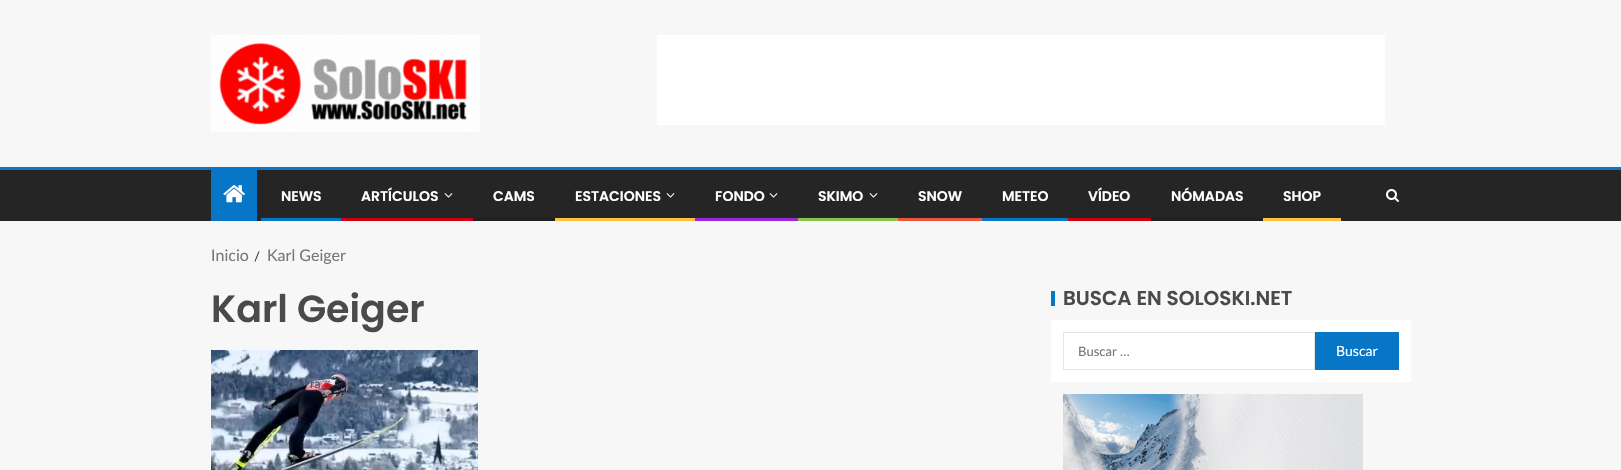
void draw(SkCanvas* canvas) {
    SkPaint paint;
    paint.setAntiAlias(true);
    auto face = [&](const char* family, int weight, float size, bool italic = false) {
        SkFontStyle style(weight, SkFontStyle::kNormal_Width,
            italic ? SkFontStyle::kItalic_Slant : SkFontStyle::kUpright_Slant);
        SkFont result(fontMgr->matchFamilyStyle(family, style), size);
        result.setSubpixel(true);
        return result;
    };
    auto write = [&](const char* s, float x, float y, const SkFont& font, SkColor color) {
        SkPaint ink(SkColor4f::FromColor(color));
        ink.setAntiAlias(true);
        canvas->drawString(s, x, y, font, ink);
    };
    auto block = [&](float x, float y, float w, float h, SkColor color) {
        SkPaint ink(SkColor4f::FromColor(color));
        ink.setAntiAlias(true);
        canvas->drawRect(SkRect::MakeXYWH(x, y, w, h), ink);
    };
    auto paste = [&](const char* path, float x, float y, float w, float h) {
        auto image = SkImages::DeferredFromEncodedData(SkData::MakeFromFileName(path));
        canvas->drawImageRect(image, SkRect::MakeXYWH(x, y, w, h), SkSamplingOptions());
    };
    canvas->clear(SkColorSetRGB(247, 247, 247));
    paste("pic1.png", 211, 35, 269, 97);
    block(657, 35, 728, 90, SK_ColorWHITE);
    block(0, 170, 1621, 51, SkColorSetRGB(37, 37, 37));
    block(0, 167, 1621, 3, SkColorSetRGB(7, 118, 198));
    block(211, 170, 46, 51, SkColorSetRGB(7, 118, 198));
    paste("pic2.png", 223, 185, 22, 18);
    auto kFont1 = face("Poppins", 600, 14);
    write("NEWS", 281, 201, kFont1, SK_ColorWHITE);
    block(261, 218, 80, 3, SkColorSetRGB(7, 118, 198));
    write("ARTÍCULOS", 361, 201, kFont1, SK_ColorWHITE);
    paste("pic3.png", 444, 193, 9, 5);
    block(341, 218, 132, 3, SkColorSetRGB(204, 0, 16));
    write("CAMS", 493, 201, kFont1, SK_ColorWHITE);
    block(473, 218, 82, 3, SkColorSetRGB(32, 32, 32));
    write("ESTACIONES", 575, 201, kFont1, SK_ColorWHITE);
    paste("pic3.png", 666, 193, 9, 5);
    block(555, 218, 140, 3, SkColorSetRGB(255, 191, 63));
    write("FONDO", 715, 201, kFont1, SK_ColorWHITE);
    paste("pic3.png", 769, 193, 9, 5);
    block(695, 218, 103, 3, SkColorSetRGB(156, 39, 217));
    write("SKIMO", 818, 201, kFont1, SK_ColorWHITE);
    paste("pic3.png", 869, 193, 9, 5);
    block(798, 218, 100, 3, SkColorSetRGB(139, 195, 74));
    write("SNOW", 918, 201, kFont1, SK_ColorWHITE);
    block(898, 218, 84, 3, SkColorSetRGB(237, 85, 63));
    write("METEO", 1002, 201, kFont1, SK_ColorWHITE);
    block(982, 218, 86, 3, SkColorSetRGB(7, 118, 198));
    write("VÍDEO", 1088, 201, kFont1, SK_ColorWHITE);
    block(1068, 218, 83, 3, SkColorSetRGB(204, 0, 16));
    write("NÓMADAS", 1171, 201, kFont1, SK_ColorWHITE);
    block(1151, 218, 112, 3, SkColorSetRGB(32, 32, 32));
    write("SHOP", 1283, 201, kFont1, SK_ColorWHITE);
    block(1263, 218, 78, 3, SkColorSetRGB(255, 191, 63));
    paste("pic4.png", 1386, 189, 13, 13);
    auto kFont2 = face("Lato", 400, 16);
    write("Inicio", 211, 261, kFont2, SkColorSetRGB(119, 119, 119));
    auto kFont3 = face("Lato", 400, 13);
    write("/", 254, 261, kFont3, SkColorSetRGB(57, 62, 70));
    write("Karl Geiger", 267, 261, kFont2, SkColorSetRGB(119, 119, 119));
    auto kFont4 = face("Poppins", 600, 38);
    write("Karl Geiger", 211, 322, kFont4, SkColorSetRGB(74, 74, 74));
    paste("pic5.png", 211, 350, 267, 120);
    auto kFont5 = face("Lato", 600, 12);
    write("ra", 310, 388, kFont5, SkColorSetRGB(84, 92, 117));
    block(1051, 291, 4, 15, SkColorSetRGB(7, 118, 198));
    auto kFont6 = face("Poppins", 600, 20);
    write("BUSCA EN SOLOSKI.NET", 1063, 305, kFont6, SkColorSetRGB(74, 74, 74));
    block(1051, 320, 360, 62, SK_ColorWHITE);
    paint.setStyle(SkPaint::kStroke_Style);
    paint.setStrokeWidth(1);
    paint.setColor(SkColorSetRGB(228, 228, 228));
    canvas->drawRect(SkRect::MakeXYWH(1063.5f, 332.5f, 251, 37), paint);
    write("Buscar …", 1078, 356, kFont3, SkColorSetRGB(119, 119, 119));
    block(1315, 332, 84, 38, SkColorSetRGB(7, 118, 198));
    auto kFont7 = face("Lato", 400, 14);
    write("Buscar", 1336, 356, kFont7, SK_ColorWHITE);
    paste("pic6.png", 1063, 394, 300, 76);
}
